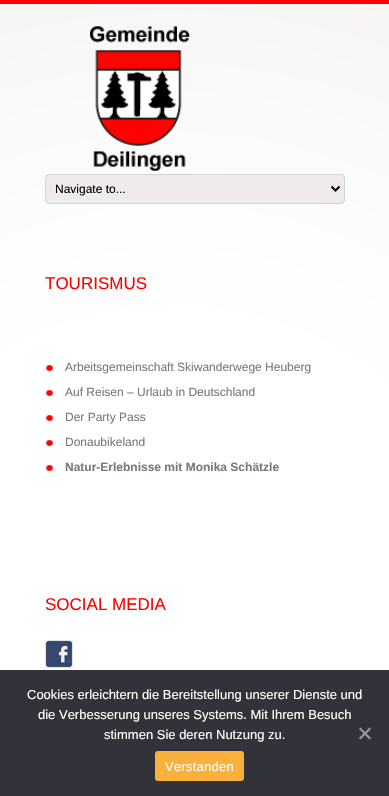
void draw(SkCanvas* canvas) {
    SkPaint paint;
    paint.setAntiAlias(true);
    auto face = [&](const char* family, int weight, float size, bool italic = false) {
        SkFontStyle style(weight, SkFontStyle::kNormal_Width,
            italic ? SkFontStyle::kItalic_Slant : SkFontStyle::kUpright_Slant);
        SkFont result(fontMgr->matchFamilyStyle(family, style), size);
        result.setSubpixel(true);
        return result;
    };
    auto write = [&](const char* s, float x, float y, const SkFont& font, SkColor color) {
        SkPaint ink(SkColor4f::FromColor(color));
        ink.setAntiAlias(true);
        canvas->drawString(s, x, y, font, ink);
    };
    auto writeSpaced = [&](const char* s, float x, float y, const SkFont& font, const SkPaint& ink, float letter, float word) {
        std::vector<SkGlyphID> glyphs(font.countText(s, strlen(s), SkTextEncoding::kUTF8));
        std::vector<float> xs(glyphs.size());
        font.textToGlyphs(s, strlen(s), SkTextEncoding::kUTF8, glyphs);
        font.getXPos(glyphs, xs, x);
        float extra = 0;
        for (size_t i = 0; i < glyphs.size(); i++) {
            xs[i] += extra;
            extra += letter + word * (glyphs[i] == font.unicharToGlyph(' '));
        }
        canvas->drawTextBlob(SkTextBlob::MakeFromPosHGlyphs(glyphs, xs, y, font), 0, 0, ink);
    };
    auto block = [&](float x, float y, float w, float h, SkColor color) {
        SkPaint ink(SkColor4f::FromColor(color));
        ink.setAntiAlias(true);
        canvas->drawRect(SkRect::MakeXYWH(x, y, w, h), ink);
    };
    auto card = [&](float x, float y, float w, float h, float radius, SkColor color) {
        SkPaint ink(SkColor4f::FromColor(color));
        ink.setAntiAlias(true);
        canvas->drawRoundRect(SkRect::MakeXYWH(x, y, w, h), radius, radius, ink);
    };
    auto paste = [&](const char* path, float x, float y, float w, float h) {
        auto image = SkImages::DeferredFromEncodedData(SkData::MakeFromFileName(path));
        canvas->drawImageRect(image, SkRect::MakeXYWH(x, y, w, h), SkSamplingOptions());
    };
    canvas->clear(SkColorSetRGB(238, 233, 231));
    paste("pic1.png", 0, 4, 389, 666);
    block(0, 0, 389, 4, SkColorSetRGB(253, 2, 0));
    paste("pic2.png", 90, 26, 100, 145);
    paint.setColor(SkColorSetRGB(239, 235, 234));
    canvas->drawRoundRect(SkRect::MakeXYWH(45.5f, 174.5f, 299, 29), 3.5f, 3.5f, paint);
    paint.setStyle(SkPaint::kStroke_Style);
    paint.setStrokeWidth(1);
    paint.setColor(SkColorSetRGB(213, 210, 209));
    canvas->drawRoundRect(SkRect::MakeXYWH(45.5f, 174.5f, 299, 29), 3.5f, 3.5f, paint);
    paint.setStrokeWidth(2);
    paint.setColor(SK_ColorBLACK);
    canvas->drawPath(SkPathBuilder().moveTo(331.5f, 186.5f).lineTo(335.5f, 190.5f).lineTo(339.5f, 186.5f).detach(), paint);
    auto kFont1 = face("Liberation Sans", 400, 12);
    write("Navigate to...", 55, 193, kFont1, SK_ColorBLACK);
    auto kFont2 = face("Liberation Sans", 400, 17);
    write("TOURISMUS", 45, 289, kFont2, SkColorSetRGB(253, 2, 0));
    paste("pic3.png", 46, 365, 7, 6);
    write("Arbeitsgemeinschaft Skiwanderwege Heuberg", 65, 371, kFont1, SkColorSetRGB(124, 120, 118));
    paste("pic4.png", 46, 390, 7, 6);
    write("Auf Reisen – Urlaub in Deutschland", 65, 396, kFont1, SkColorSetRGB(124, 120, 118));
    paste("pic4.png", 46, 415, 7, 6);
    write("Der Party Pass", 65, 421, kFont1, SkColorSetRGB(124, 120, 118));
    paste("pic4.png", 46, 440, 7, 6);
    write("Donaubikeland", 65, 446, kFont1, SkColorSetRGB(124, 120, 118));
    paste("pic4.png", 46, 465, 7, 6);
    auto kFont3 = face("Liberation Sans", 700, 12);
    write("Natur-Erlebnisse mit Monika Schätzle", 65, 471, kFont3, SkColorSetRGB(124, 120, 118));
    write("SOCIAL MEDIA", 45, 610, kFont2, SkColorSetRGB(253, 2, 0));
    paste("pic5.png", 45, 640, 28, 28);
    block(0, 670, 389, 126, SkColorSetRGB(50, 50, 58));
    auto kFont4 = face("Liberation Sans", 400, 13);
    write("Cookies erleichtern die Bereitstellung unserer Dienste und", 27, 699, kFont4, SK_ColorWHITE);
    write("die Verbesserung unseres Systems. Mit Ihrem Besuch", 38, 719, kFont4, SK_ColorWHITE);
    write("stimmen Sie deren Nutzung zu.", 104, 739, kFont4, SK_ColorWHITE);
    paint.setStyle(SkPaint::kFill_Style);
    paint.setColor(SkColorSetRGB(153, 153, 157));
    canvas->drawPath(SkPathBuilder().moveTo(369.5f, 727.5f).lineTo(371, 729).lineTo(360.5f, 739.5f).lineTo(359, 738).close().detach(), paint);
    canvas->drawPath(SkPathBuilder().moveTo(359, 729).lineTo(360.5f, 727.5f).lineTo(371, 738).lineTo(369.5f, 739.5f).close().detach(), paint);
    card(155, 751, 89, 30, 3, SkColorSetRGB(251, 176, 59));
    paint.setColor(SK_ColorWHITE);
    writeSpaced("Verstanden", 165, 771, kFont4, paint, 0.25f, 0);
}
